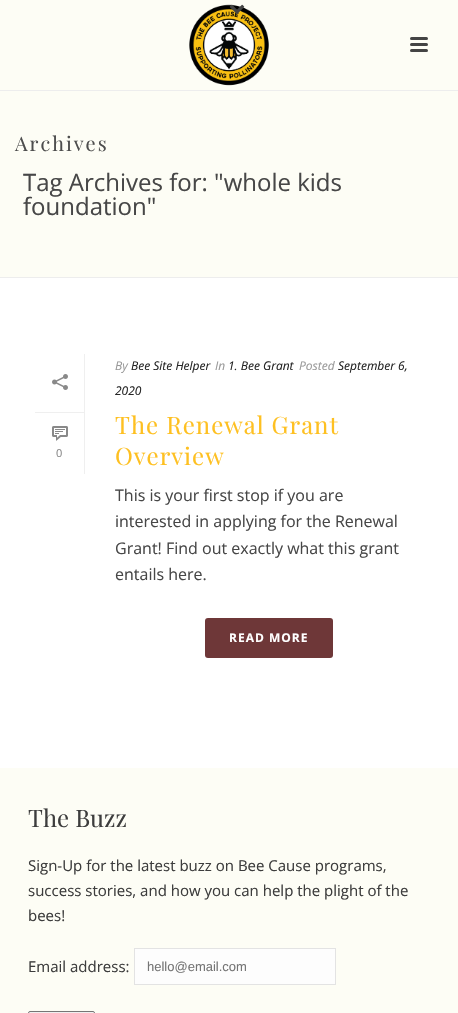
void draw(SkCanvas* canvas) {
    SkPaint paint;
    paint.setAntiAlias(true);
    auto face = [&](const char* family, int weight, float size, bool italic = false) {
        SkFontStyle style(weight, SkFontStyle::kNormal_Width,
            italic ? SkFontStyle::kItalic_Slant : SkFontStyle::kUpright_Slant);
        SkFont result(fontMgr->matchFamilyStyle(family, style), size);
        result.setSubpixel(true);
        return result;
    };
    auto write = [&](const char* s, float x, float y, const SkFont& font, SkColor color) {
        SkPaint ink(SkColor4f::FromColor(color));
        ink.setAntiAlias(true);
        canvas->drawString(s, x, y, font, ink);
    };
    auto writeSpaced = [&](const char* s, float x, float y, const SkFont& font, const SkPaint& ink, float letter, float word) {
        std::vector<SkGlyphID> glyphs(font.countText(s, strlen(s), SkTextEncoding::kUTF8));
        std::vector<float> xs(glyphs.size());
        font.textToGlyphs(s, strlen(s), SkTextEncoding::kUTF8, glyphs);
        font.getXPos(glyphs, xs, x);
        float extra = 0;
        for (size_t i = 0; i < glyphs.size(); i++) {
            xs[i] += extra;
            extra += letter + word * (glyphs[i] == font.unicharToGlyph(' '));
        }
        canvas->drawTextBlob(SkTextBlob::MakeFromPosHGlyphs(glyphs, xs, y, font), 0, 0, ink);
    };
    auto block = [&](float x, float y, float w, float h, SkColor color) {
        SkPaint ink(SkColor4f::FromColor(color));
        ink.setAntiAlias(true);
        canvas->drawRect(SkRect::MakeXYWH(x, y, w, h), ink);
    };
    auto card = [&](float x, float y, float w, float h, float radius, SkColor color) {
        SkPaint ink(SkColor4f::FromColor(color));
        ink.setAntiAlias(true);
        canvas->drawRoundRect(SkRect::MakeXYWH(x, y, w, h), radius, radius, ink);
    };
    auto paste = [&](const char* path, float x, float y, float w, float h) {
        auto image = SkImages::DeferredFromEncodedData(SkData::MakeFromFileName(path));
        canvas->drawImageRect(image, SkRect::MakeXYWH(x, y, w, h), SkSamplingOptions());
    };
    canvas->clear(SK_ColorWHITE);
    block(0, 0, 458, 277, SkColorSetRGB(253, 253, 245));
    block(0, 277, 458, 1, SkColorSetRGB(237, 237, 237));
    block(0, 90, 458, 1, SkColorSetRGB(237, 237, 237));
    paste("pic1.png", 189, 4, 80, 82);
    card(410, 37, 18, 3, 1.5f, SkColorSetRGB(68, 68, 68));
    card(410, 43, 18, 3, 1.5f, SkColorSetRGB(68, 68, 68));
    card(410, 49, 18, 3, 1.5f, SkColorSetRGB(68, 68, 68));
    paste("pic2.png", 229, 4, 16, 10);
    auto kFont1 = face("Playfair Display", 400, 20);
    paint.setColor(SkColorSetRGB(77, 77, 77));
    writeSpaced("Archives", 15, 151, kFont1, paint, 2, 0);
    auto kFont2 = face("Open Sans", 400, 24);
    write("Tag Archives for: \"whole kids", 23, 191, kFont2, SkColorSetRGB(71, 71, 71));
    write("foundation\"", 23, 215, kFont2, SkColorSetRGB(71, 71, 71));
    block(84, 354, 1, 120, SkColorSetRGB(239, 239, 239));
    block(35, 412, 49, 1, SkColorSetRGB(239, 239, 239));
    paste("pic3.png", 52, 374, 16, 16);
    paste("pic4.png", 52, 426, 16, 15);
    auto kFont3 = face("Open Sans", 400, 11);
    write("0", 56, 457, kFont3, SkColorSetRGB(137, 137, 137));
    auto kFont4 = face("Open Sans", 400, 12, true);
    write("By", 115, 370, kFont4, SkColorSetRGB(153, 153, 153));
    write("Bee Site Helper", 131, 370, kFont4, SkColorSetRGB(37, 37, 37));
    write("In", 215, 370, kFont4, SkColorSetRGB(153, 153, 153));
    write("1. Bee Grant", 228, 370, kFont4, SkColorSetRGB(37, 37, 37));
    write("Posted", 299, 370, kFont4, SkColorSetRGB(153, 153, 153));
    write("September 6,", 338, 370, kFont4, SkColorSetRGB(37, 37, 37));
    write("2020", 115, 395, kFont4, SkColorSetRGB(37, 37, 37));
    auto kFont5 = face("Playfair Display", 400, 24);
    paint.setColor(SkColorSetRGB(254, 192, 33));
    writeSpaced("The Renewal Grant", 115, 434, kFont5, paint, 1, 0);
    writeSpaced("Overview", 115, 465, kFont5, paint, 1, 0);
    auto kFont6 = face("Open Sans", 400, 16);
    write("This is your first stop if you are", 115, 501, kFont6, SkColorSetRGB(71, 71, 71));
    write("interested in applying for the Renewal", 115, 527, kFont6, SkColorSetRGB(71, 71, 71));
    write("Grant! Find out exactly what this grant", 115, 554, kFont6, SkColorSetRGB(71, 71, 71));
    write("entails here.", 115, 580, kFont6, SkColorSetRGB(71, 71, 71));
    card(205, 618, 128, 40, 3, SkColorSetRGB(110, 55, 56));
    auto kFont7 = face("Open Sans", 700, 12);
    paint.setColor(SK_ColorWHITE);
    writeSpaced("READ MORE", 229, 642, kFont7, paint, 1, 0);
    block(0, 768, 458, 245, SkColorSetRGB(253, 253, 245));
    write("The Buzz", 28, 827, kFont5, SkColorSetRGB(61, 61, 61));
    auto kFont8 = face("Open Sans", 400, 15);
    write("Sign-Up for the latest buzz on Bee Cause programs,", 28, 871, kFont8, SkColorSetRGB(61, 61, 61));
    write("success stories, and how you can help the plight of the", 28, 896, kFont8, SkColorSetRGB(61, 61, 61));
    write("bees!", 28, 921, kFont8, SkColorSetRGB(61, 61, 61));
    write("Email address:", 28, 972, kFont8, SkColorSetRGB(61, 61, 61));
    paint.setColor(SkColorSetRGB(253, 253, 253));
    canvas->drawRect(SkRect::MakeXYWH(134.5f, 948.5f, 201, 36), paint);
    paint.setStyle(SkPaint::kStroke_Style);
    paint.setStrokeWidth(1);
    paint.setColor(SkColorSetRGB(227, 227, 227));
    canvas->drawRect(SkRect::MakeXYWH(134.5f, 948.5f, 201, 36), paint);
    auto kFont9 = face("Liberation Sans", 400, 13);
    write("hello@email.com", 147, 971, kFont9, SkColorSetRGB(117, 117, 117));
    paint.setStyle(SkPaint::kFill_Style);
    paint.setColor(SkColorSetRGB(239, 239, 239));
    canvas->drawRoundRect(SkRect::MakeXYWH(28.5f, 1011.5f, 66, 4), 1.5f, 1.5f, paint);
    paint.setStyle(SkPaint::kStroke_Style);
    paint.setColor(SkColorSetRGB(118, 118, 118));
    canvas->drawRoundRect(SkRect::MakeXYWH(28.5f, 1011.5f, 66, 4), 1.5f, 1.5f, paint);
}
